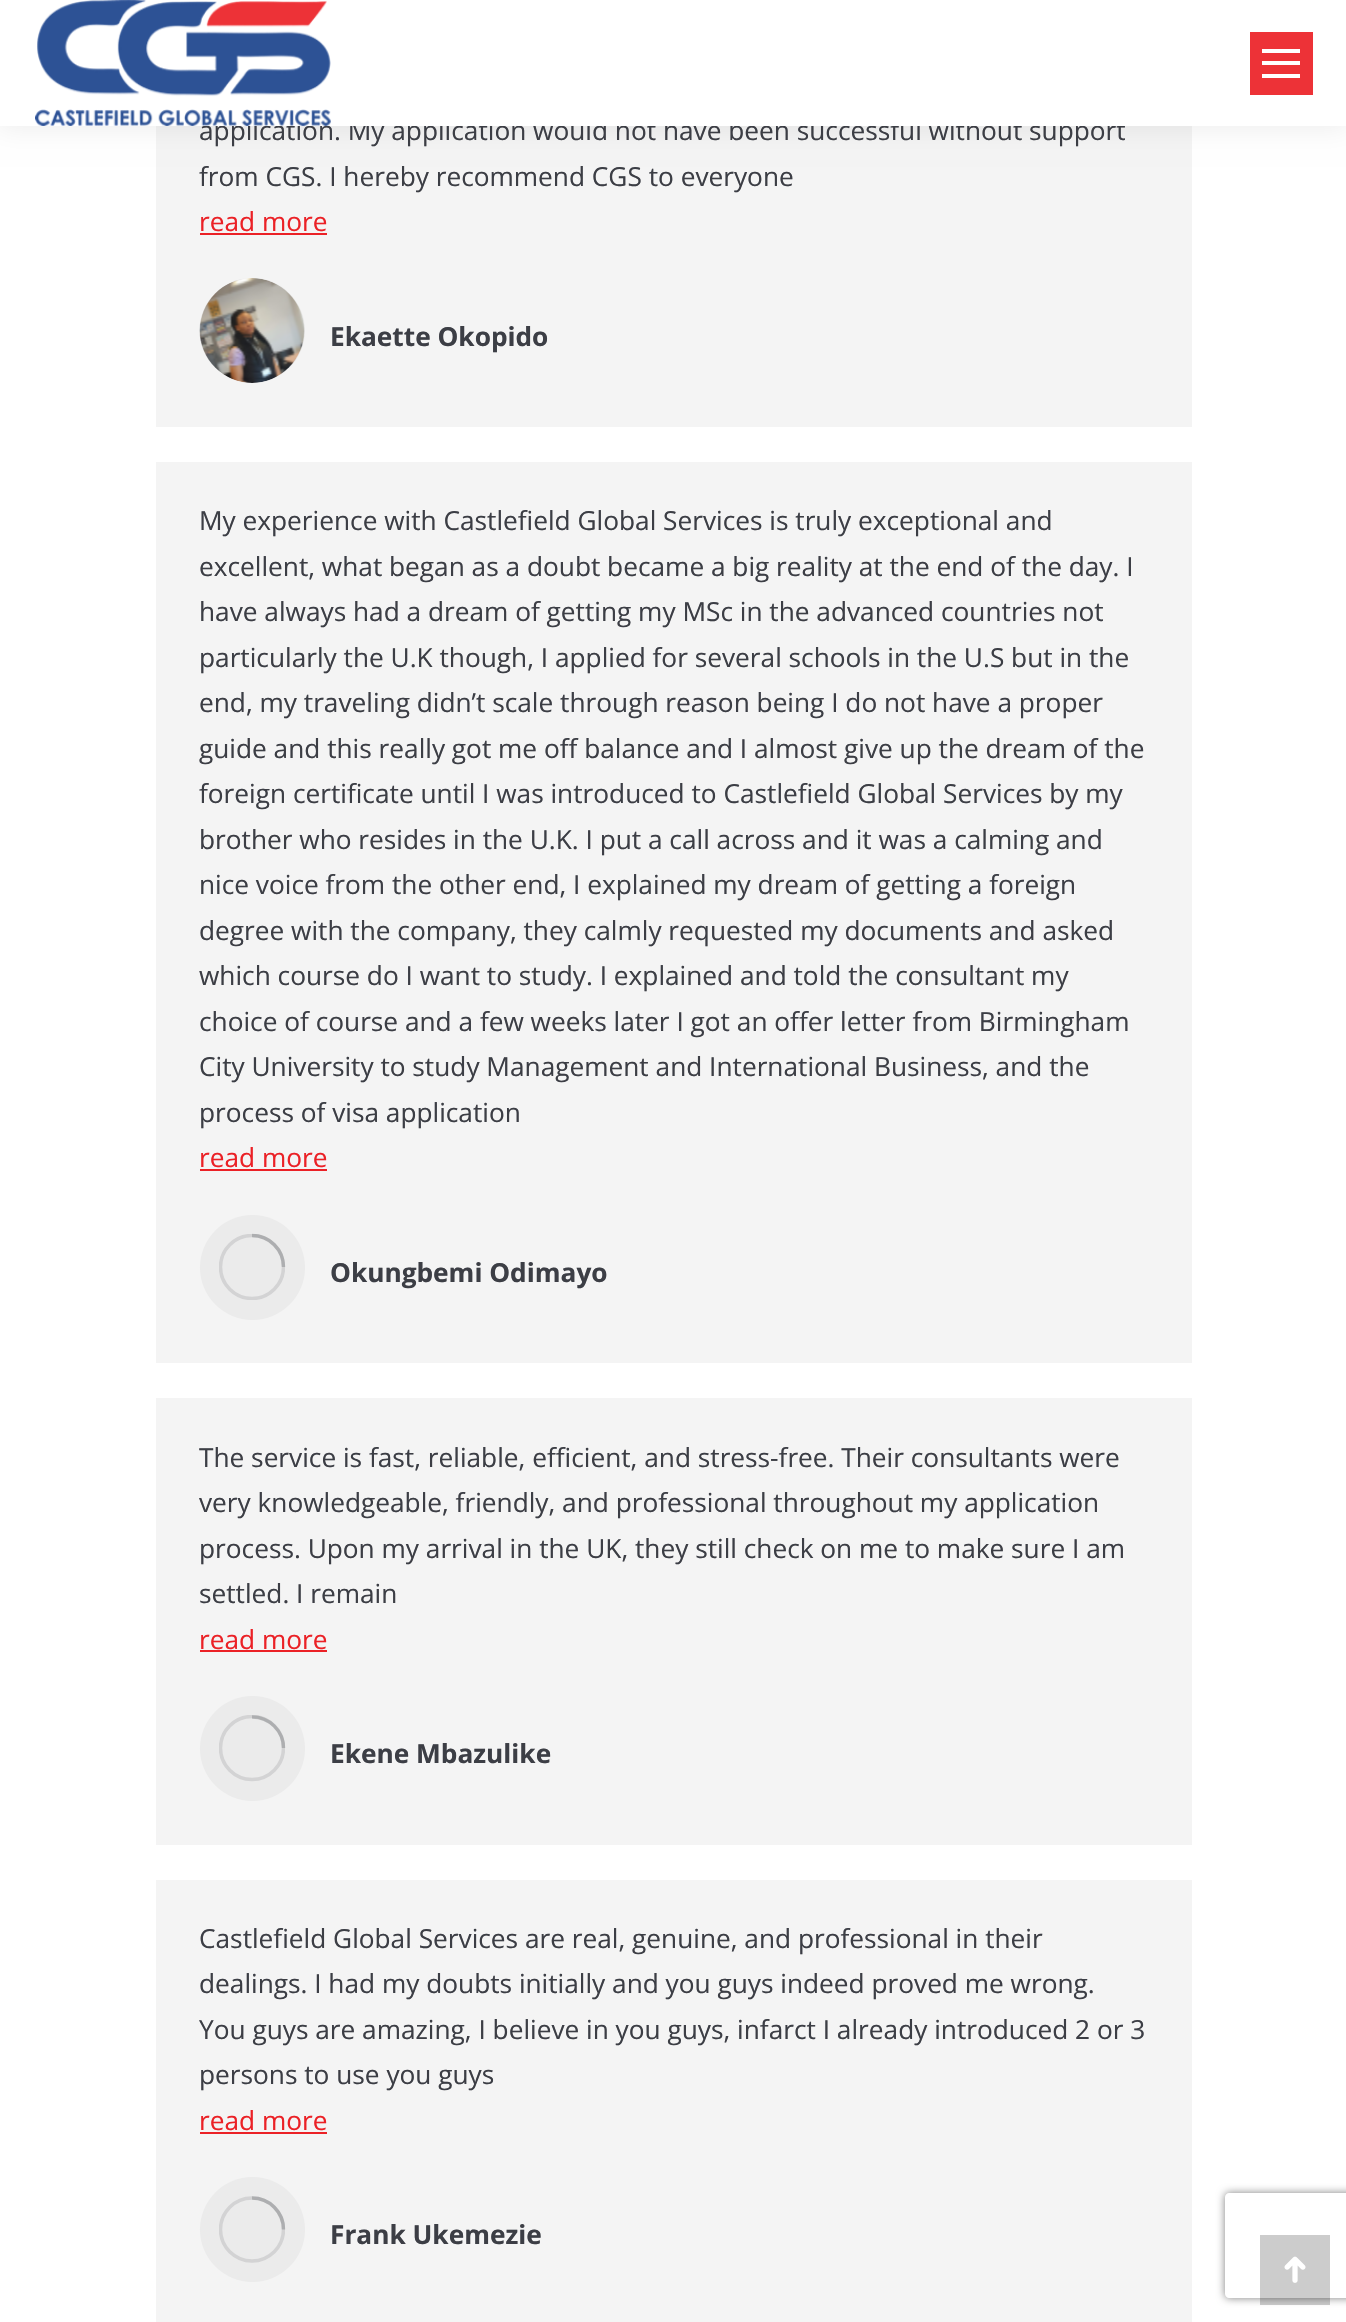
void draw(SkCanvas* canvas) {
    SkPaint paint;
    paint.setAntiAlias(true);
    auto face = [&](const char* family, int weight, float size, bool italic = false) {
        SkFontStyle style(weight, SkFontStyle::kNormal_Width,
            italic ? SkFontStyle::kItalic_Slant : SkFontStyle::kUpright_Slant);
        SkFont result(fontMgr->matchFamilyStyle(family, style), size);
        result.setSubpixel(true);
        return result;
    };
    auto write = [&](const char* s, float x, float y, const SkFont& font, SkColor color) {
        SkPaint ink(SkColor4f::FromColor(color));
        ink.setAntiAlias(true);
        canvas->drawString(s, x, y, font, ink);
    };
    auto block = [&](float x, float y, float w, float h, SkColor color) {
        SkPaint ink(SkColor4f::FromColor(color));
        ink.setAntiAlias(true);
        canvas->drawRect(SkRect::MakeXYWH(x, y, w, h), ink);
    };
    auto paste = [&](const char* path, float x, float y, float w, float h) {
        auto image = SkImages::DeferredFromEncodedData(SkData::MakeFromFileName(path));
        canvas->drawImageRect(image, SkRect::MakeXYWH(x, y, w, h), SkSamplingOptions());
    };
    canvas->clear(SK_ColorWHITE);
    block(156, 126, 1036, 301, SkColorSetRGB(244, 244, 244));
    paint.setColor(SkColorSetARGB(18, 0, 0, 0));
    paint.setMaskFilter(SkMaskFilter::MakeBlur(kNormal_SkBlurStyle, 13));
    canvas->drawRect(SkRect::MakeXYWH(-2, -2, 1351, 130), paint);
    paint.setMaskFilter(nullptr);
    auto kFont1 = face("Open Sans", 400, 26.25f);
    write("application. My application would not have been successful without support", 199, 140, kFont1, SkColorSetRGB(60, 62, 69));
    block(0, 0, 1346, 126, SK_ColorWHITE);
    paste("pic1.png", 35, 0, 296, 126);
    block(1250, 32, 63, 63, SkColorSetRGB(237, 50, 55));
    block(1262, 49, 38, 4, SK_ColorWHITE);
    block(1262, 61, 38, 4, SK_ColorWHITE);
    block(1262, 74, 38, 4, SK_ColorWHITE);
    write("from CGS. I hereby recommend CGS to everyone", 199, 186, kFont1, SkColorSetRGB(60, 62, 69));
    write("read more", 199, 231, kFont1, SkColorSetRGB(235, 33, 38));
    block(200, 233, 127, 2, SkColorSetRGB(235, 33, 38));
    paint.setColor(SkColorSetRGB(235, 235, 235));
    canvas->drawCircle(252.5f, 330.5f, 52.5f, paint);
    paste("pic2.png", 199, 278, 106, 105);
    auto kFont2 = face("Open Sans", 700, 26.25f);
    write("Ekaette Okopido", 330, 346, kFont2, SkColorSetRGB(60, 62, 69));
    block(156, 462, 1036, 901, SkColorSetRGB(244, 244, 244));
    write("My experience with Castlefield Global Services is truly exceptional and", 199, 530, kFont1, SkColorSetRGB(60, 62, 69));
    write("excellent, what began as a doubt became a big reality at the end of the day. I", 199, 576, kFont1, SkColorSetRGB(60, 62, 69));
    write("have always had a dream of getting my MSc in the advanced countries not", 199, 621, kFont1, SkColorSetRGB(60, 62, 69));
    write("particularly the U.K though, I applied for several schools in the U.S but in the", 199, 667, kFont1, SkColorSetRGB(60, 62, 69));
    write("end, my traveling didn’t scale through reason being I do not have a proper", 199, 712, kFont1, SkColorSetRGB(60, 62, 69));
    write("guide and this really got me off balance and I almost give up the dream of the", 199, 758, kFont1, SkColorSetRGB(60, 62, 69));
    write("foreign certificate until I was introduced to Castlefield Global Services by my", 199, 803, kFont1, SkColorSetRGB(60, 62, 69));
    write("brother who resides in the U.K. I put a call across and it was a calming and", 199, 849, kFont1, SkColorSetRGB(60, 62, 69));
    write("nice voice from the other end, I explained my dream of getting a foreign", 199, 894, kFont1, SkColorSetRGB(60, 62, 69));
    write("degree with the company, they calmly requested my documents and asked", 199, 940, kFont1, SkColorSetRGB(60, 62, 69));
    write("which course do I want to study. I explained and told the consultant my", 199, 985, kFont1, SkColorSetRGB(60, 62, 69));
    write("choice of course and a few weeks later I got an offer letter from Birmingham", 199, 1031, kFont1, SkColorSetRGB(60, 62, 69));
    write("City University to study Management and International Business, and the", 199, 1076, kFont1, SkColorSetRGB(60, 62, 69));
    write("process of visa application", 199, 1122, kFont1, SkColorSetRGB(60, 62, 69));
    write("read more", 199, 1167, kFont1, SkColorSetRGB(235, 33, 38));
    block(200, 1169, 127, 2, SkColorSetRGB(235, 33, 38));
    canvas->drawCircle(252.5f, 1267.5f, 52.5f, paint);
    canvas->save();
    canvas->clipRect(SkRect::MakeXYWH(219, 1234, 66, 66));
    paint.setStyle(SkPaint::kStroke_Style);
    paint.setStrokeWidth(3.5f);
    paint.setColor(SkColorSetRGB(211, 211, 212));
    canvas->drawCircle(252, 1267, 31.5f, paint);
    canvas->restore();
    paint.setColor(SkColorSetARGB(64, 60, 62, 69));
    canvas->drawPath(SkPathBuilder().moveTo(283.5f, 1267).cubicTo(283.5f, 1249.5f, 269.5f, 1235.5f, 252, 1235.5f).detach(), paint);
    write("Okungbemi Odimayo", 330, 1282, kFont2, SkColorSetRGB(60, 62, 69));
    block(156, 1398, 1036, 447, SkColorSetRGB(244, 244, 244));
    write("The service is fast, reliable, efficient, and stress-free. Their consultants were", 199, 1467, kFont1, SkColorSetRGB(60, 62, 69));
    write("very knowledgeable, friendly, and professional throughout my application", 199, 1512, kFont1, SkColorSetRGB(60, 62, 69));
    write("process. Upon my arrival in the UK, they still check on me to make sure I am", 199, 1558, kFont1, SkColorSetRGB(60, 62, 69));
    write("settled. I remain", 199, 1603, kFont1, SkColorSetRGB(60, 62, 69));
    write("read more", 199, 1649, kFont1, SkColorSetRGB(235, 33, 38));
    block(200, 1650, 127, 2, SkColorSetRGB(235, 33, 38));
    paint.setStyle(SkPaint::kFill_Style);
    paint.setColor(SkColorSetRGB(235, 235, 235));
    canvas->drawCircle(252.5f, 1748.5f, 52.5f, paint);
    canvas->save();
    canvas->clipRect(SkRect::MakeXYWH(219, 1715, 66, 67));
    paint.setStyle(SkPaint::kStroke_Style);
    paint.setColor(SkColorSetRGB(211, 211, 212));
    canvas->drawCircle(252, 1748, 31.5f, paint);
    canvas->restore();
    paint.setColor(SkColorSetARGB(64, 60, 62, 69));
    canvas->drawPath(SkPathBuilder().moveTo(283.5f, 1748).cubicTo(283.5f, 1731, 269.5f, 1717, 252, 1717).detach(), paint);
    write("Ekene Mbazulike", 330, 1763, kFont2, SkColorSetRGB(60, 62, 69));
    block(156, 1880, 1036, 442, SkColorSetRGB(244, 244, 244));
    write("Castlefield Global Services are real, genuine, and professional in their", 199, 1948, kFont1, SkColorSetRGB(60, 62, 69));
    write("dealings. I had my doubts initially and you guys indeed proved me wrong.", 199, 1993, kFont1, SkColorSetRGB(60, 62, 69));
    write("You guys are amazing, I believe in you guys, infarct I already introduced 2 or 3", 199, 2039, kFont1, SkColorSetRGB(60, 62, 69));
    write("persons to use you guys", 199, 2084, kFont1, SkColorSetRGB(60, 62, 69));
    write("read more", 199, 2130, kFont1, SkColorSetRGB(235, 33, 38));
    block(200, 2132, 127, 2, SkColorSetRGB(235, 33, 38));
    paint.setStyle(SkPaint::kFill_Style);
    paint.setColor(SkColorSetRGB(235, 235, 235));
    canvas->drawCircle(252.5f, 2229.5f, 52.5f, paint);
    canvas->save();
    canvas->clipRect(SkRect::MakeXYWH(219, 2196, 66, 67));
    paint.setStyle(SkPaint::kStroke_Style);
    paint.setColor(SkColorSetRGB(211, 211, 212));
    canvas->drawCircle(252, 2229.5f, 31.5f, paint);
    canvas->restore();
    paint.setColor(SkColorSetARGB(64, 60, 62, 69));
    canvas->drawPath(SkPathBuilder().moveTo(283.5f, 2229.5f).cubicTo(283.5f, 2212, 269.5f, 2198, 252, 2198).detach(), paint);
    write("Frank Ukemezie", 330, 2244, kFont2, SkColorSetRGB(60, 62, 69));
    canvas->save();
    canvas->clipPath(SkPathBuilder(SkPathFillType::kEvenOdd).moveTo(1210, 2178).lineTo(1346, 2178).lineTo(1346, 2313).lineTo(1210, 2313).close().moveTo(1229, 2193).lineTo(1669, 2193).cubicTo(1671, 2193, 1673, 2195, 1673, 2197).lineTo(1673, 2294).cubicTo(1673, 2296, 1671, 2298, 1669, 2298).lineTo(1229, 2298).cubicTo(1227, 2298, 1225, 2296, 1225, 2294).lineTo(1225, 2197).cubicTo(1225, 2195, 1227, 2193, 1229, 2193).close().detach(), true);
    paint.setStyle(SkPaint::kFill_Style);
    paint.setColor(SkColorSetRGB(128, 128, 128));
    paint.setMaskFilter(SkMaskFilter::MakeBlur(kNormal_SkBlurStyle, 4.5f));
    canvas->drawRoundRect(SkRect::MakeXYWH(1225, 2193, 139, 105), 4, 4, paint);
    paint.setMaskFilter(nullptr);
    canvas->restore();
    block(1260, 2235, 70, 70, SkColorSetARGB(51, 0, 0, 0));
    paste("pic3.png", 1284, 2256, 22, 27);
}
